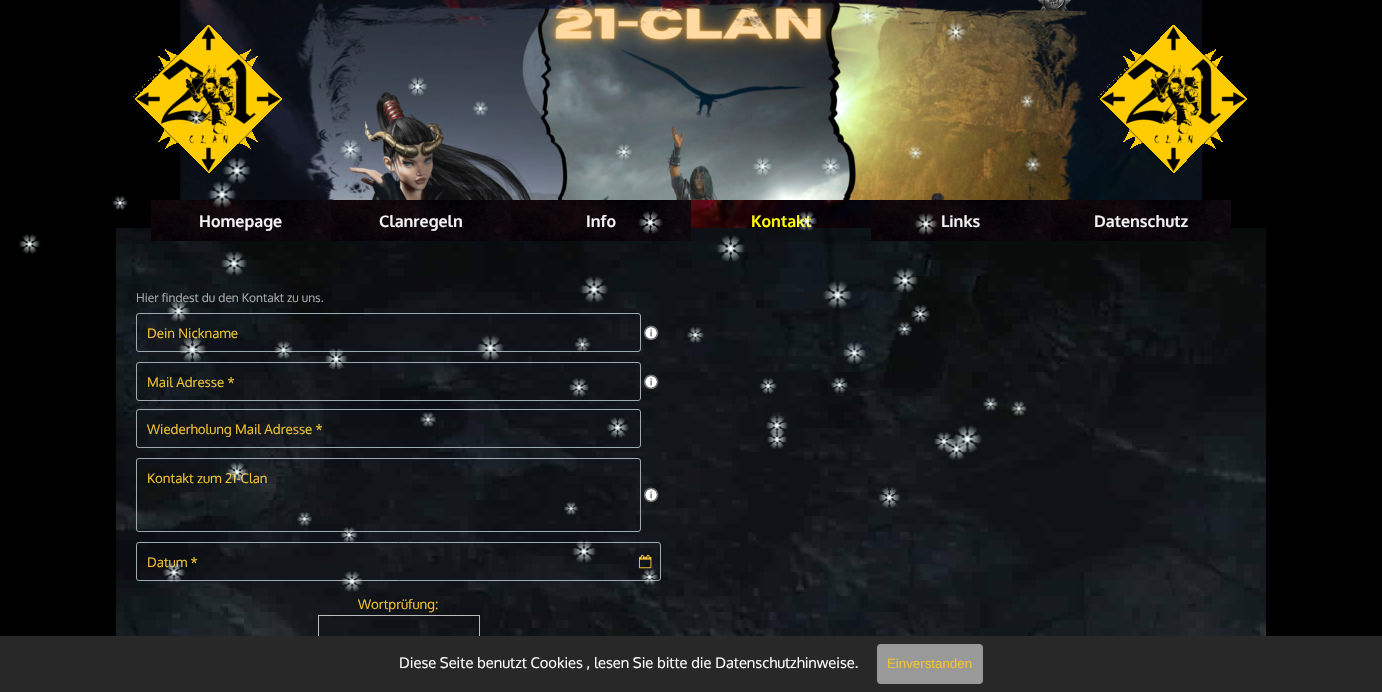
void draw(SkCanvas* canvas) {
    SkPaint paint;
    paint.setAntiAlias(true);
    auto face = [&](const char* family, int weight, float size, bool italic = false) {
        SkFontStyle style(weight, SkFontStyle::kNormal_Width,
            italic ? SkFontStyle::kItalic_Slant : SkFontStyle::kUpright_Slant);
        SkFont result(fontMgr->matchFamilyStyle(family, style), size);
        result.setSubpixel(true);
        return result;
    };
    auto write = [&](const char* s, float x, float y, const SkFont& font, SkColor color) {
        SkPaint ink(SkColor4f::FromColor(color));
        ink.setAntiAlias(true);
        canvas->drawString(s, x, y, font, ink);
    };
    auto block = [&](float x, float y, float w, float h, SkColor color) {
        SkPaint ink(SkColor4f::FromColor(color));
        ink.setAntiAlias(true);
        canvas->drawRect(SkRect::MakeXYWH(x, y, w, h), ink);
    };
    auto card = [&](float x, float y, float w, float h, float radius, SkColor color) {
        SkPaint ink(SkColor4f::FromColor(color));
        ink.setAntiAlias(true);
        canvas->drawRoundRect(SkRect::MakeXYWH(x, y, w, h), radius, radius, ink);
    };
    auto paste = [&](const char* path, float x, float y, float w, float h) {
        auto image = SkImages::DeferredFromEncodedData(SkData::MakeFromFileName(path));
        canvas->drawImageRect(image, SkRect::MakeXYWH(x, y, w, h), SkSamplingOptions());
    };
    canvas->clear(SK_ColorBLACK);
    paste("pic56.png", 180, 0, 1022, 228);
    paste("pic58.png", 1037, 0, 35, 17);
    paste("pic57.png", 296, 0, 790, 200);
    paste("pic1.png", 855, 5, 24, 22);
    paste("pic2.png", 945, 22, 21, 20);
    paste("pic3.png", 408, 77, 20, 19);
    paste("pic59.png", 133, 25, 149, 148);
    paste("pic4.png", 186, 109, 20, 18);
    paste("pic5.png", 472, 101, 16, 15);
    paste("pic6.png", 1020, 95, 15, 13);
    paste("pic7.png", 339, 139, 22, 21);
    paste("pic8.png", 615, 144, 17, 16);
    paste("pic9.png", 908, 146, 15, 14);
    paste("pic10.png", 222, 157, 29, 27);
    paste("pic11.png", 753, 157, 19, 19);
    paste("pic12.png", 821, 157, 20, 19);
    paste("pic13.png", 1025, 157, 16, 15);
    paste("pic62.png", 116, 228, 1150, 408);
    card(116, 200, 1150, 41, 15, SkColorSetARGB(38, 0, 0, 0));
    paste("pic14.png", 112, 196, 16, 14);
    paste("pic61.png", 151, 200, 180, 41);
    paste("pic15.png", 207, 181, 29, 27);
    paste("pic61.png", 511, 200, 180, 41);
    paste("pic16.png", 638, 211, 25, 23);
    auto kFont1 = face("Oxygen", 700, 16);
    write("Kontakt", 751, 227, kFont1, SkColorSetRGB(255, 255, 0));
    paste("pic17.png", 796, 211, 21, 20);
    paste("pic61.png", 871, 200, 180, 41);
    paste("pic18.png", 914, 213, 24, 22);
    paste("pic19.png", 18, 234, 23, 20);
    paste("pic20.png", 221, 251, 26, 25);
    paste("pic21.png", 716, 235, 29, 27);
    auto kFont2 = face("Oxygen", 400, 12);
    write("Hier findest du den Kontakt zu uns.", 136, 302, kFont2, SkColorSetRGB(169, 169, 169));
    paint.setStyle(SkPaint::kStroke_Style);
    paint.setStrokeWidth(1);
    paint.setColor(SkColorSetRGB(159, 171, 176));
    canvas->drawRoundRect(SkRect::MakeXYWH(136.5f, 313.5f, 504, 38), 2.5f, 2.5f, paint);
    paste("pic22.png", 167, 300, 23, 22);
    paste("pic23.png", 579, 276, 29, 27);
    paste("pic24.png", 823, 281, 29, 28);
    paste("pic25.png", 892, 268, 26, 25);
    paste("pic34.png", 897, 322, 15, 14);
    paste("pic26.png", 911, 305, 19, 18);
    auto kFont3 = face("Oxygen", 400, 13.3f);
    write("Dein Nickname", 147, 338, kFont3, SkColorSetRGB(241, 194, 50));
    paste("pic27.png", 178, 336, 29, 26);
    paste("pic28.png", 274, 341, 19, 18);
    canvas->drawRoundRect(SkRect::MakeXYWH(136.5f, 362.5f, 504, 38), 2.5f, 2.5f, paint);
    paste("pic29.png", 324, 348, 24, 22);
    paste("pic30.png", 477, 335, 27, 26);
    paste("pic31.png", 574, 337, 17, 15);
    paste("pic32.png", 687, 327, 17, 16);
    paste("pic33.png", 842, 342, 24, 22);
    paste("pic35.png", 569, 378, 20, 19);
    paste("pic36.png", 759, 378, 18, 16);
    paste("pic37.png", 831, 377, 17, 16);
    paste("pic38.png", 983, 397, 15, 14);
    paste("pic39.png", 1011, 401, 16, 15);
    canvas->drawRoundRect(SkRect::MakeXYWH(136.5f, 409.5f, 504, 38), 2.5f, 2.5f, paint);
    paste("pic40.png", 420, 412, 16, 15);
    paste("pic41.png", 606, 417, 23, 21);
    paste("pic44.png", 767, 430, 20, 19);
    paste("pic42.png", 766, 415, 22, 21);
    paste("pic45.png", 934, 432, 20, 19);
    paste("pic43.png", 953, 425, 29, 28);
    paste("pic46.png", 945, 438, 23, 22);
    canvas->drawRoundRect(SkRect::MakeXYWH(136.5f, 458.5f, 504, 73), 2.5f, 2.5f, paint);
    write("Kontakt zum 21-Clan", 147, 483, kFont3, SkColorSetRGB(241, 194, 50));
    paste("pic47.png", 226, 462, 22, 20);
    paste("pic48.png", 564, 502, 15, 13);
    paste("pic49.png", 878, 487, 23, 21);
    paste("pic50.png", 297, 512, 15, 14);
    canvas->drawRoundRect(SkRect::MakeXYWH(136.5f, 542.5f, 524, 38), 2.5f, 2.5f, paint);
    paste("pic51.png", 340, 527, 18, 16);
    paste("pic52.png", 572, 540, 24, 23);
    write("Datum *", 147, 567, kFont3, SkColorSetRGB(241, 194, 50));
    paste("pic53.png", 163, 562, 22, 21);
    paste("pic54.png", 341, 571, 22, 21);
    paste("pic55.png", 641, 569, 17, 16);
    paste("pic60.png", 1098, 25, 149, 148);
    write("Homepage", 199, 227, kFont1, SkColorSetRGB(243, 243, 243));
    paste("pic61.png", 331, 200, 180, 41);
    write("Clanregeln", 379, 227, kFont1, SkColorSetRGB(243, 243, 243));
    write("Info", 586, 227, kFont1, SkColorSetRGB(243, 243, 243));
    write("Links", 941, 227, kFont1, SkColorSetRGB(243, 243, 243));
    paste("pic61.png", 1051, 200, 180, 41);
    write("Datenschutz", 1094, 227, kFont1, SkColorSetRGB(243, 243, 243));
    paste("pic63.png", 643, 325, 16, 16);
    write("Mail Adresse *", 147, 387, kFont3, SkColorSetRGB(241, 194, 50));
    paste("pic64.png", 643, 374, 16, 16);
    canvas->save();
    canvas->clipRect(SkRect::MakeXYWH(147, 420, 483, 17));
    write("Wiederholung Mail Adresse *", 147, 434, kFont3, SkColorSetRGB(241, 194, 50));
    canvas->restore();
    paste("pic65.png", 643, 487, 16, 16);
    paste("pic66.png", 639, 554, 13, 15);
    write("Wortprüfung:", 358, 609, kFont3, SkColorSetRGB(241, 194, 50));
    paint.setColor(SkColorSetRGB(187, 187, 187));
    canvas->drawRect(SkRect::MakeXYWH(318.5f, 615.5f, 161, 33), paint);
    block(0, 636, 1382, 56, SkColorSetRGB(40, 40, 40));
    auto kFont4 = face("Oxygen", 400, 14.7f);
    write("Diese Seite benutzt Cookies , lesen Sie bitte die Datenschutzhinweise.", 399, 668, kFont4, SK_ColorWHITE);
    card(877, 644, 106, 40, 4, SkColorSetRGB(153, 153, 153));
    auto kFont5 = face("Liberation Sans", 400, 13.3f);
    write("Einverstanden", 887, 668, kFont5, SkColorSetRGB(241, 194, 50));
}
